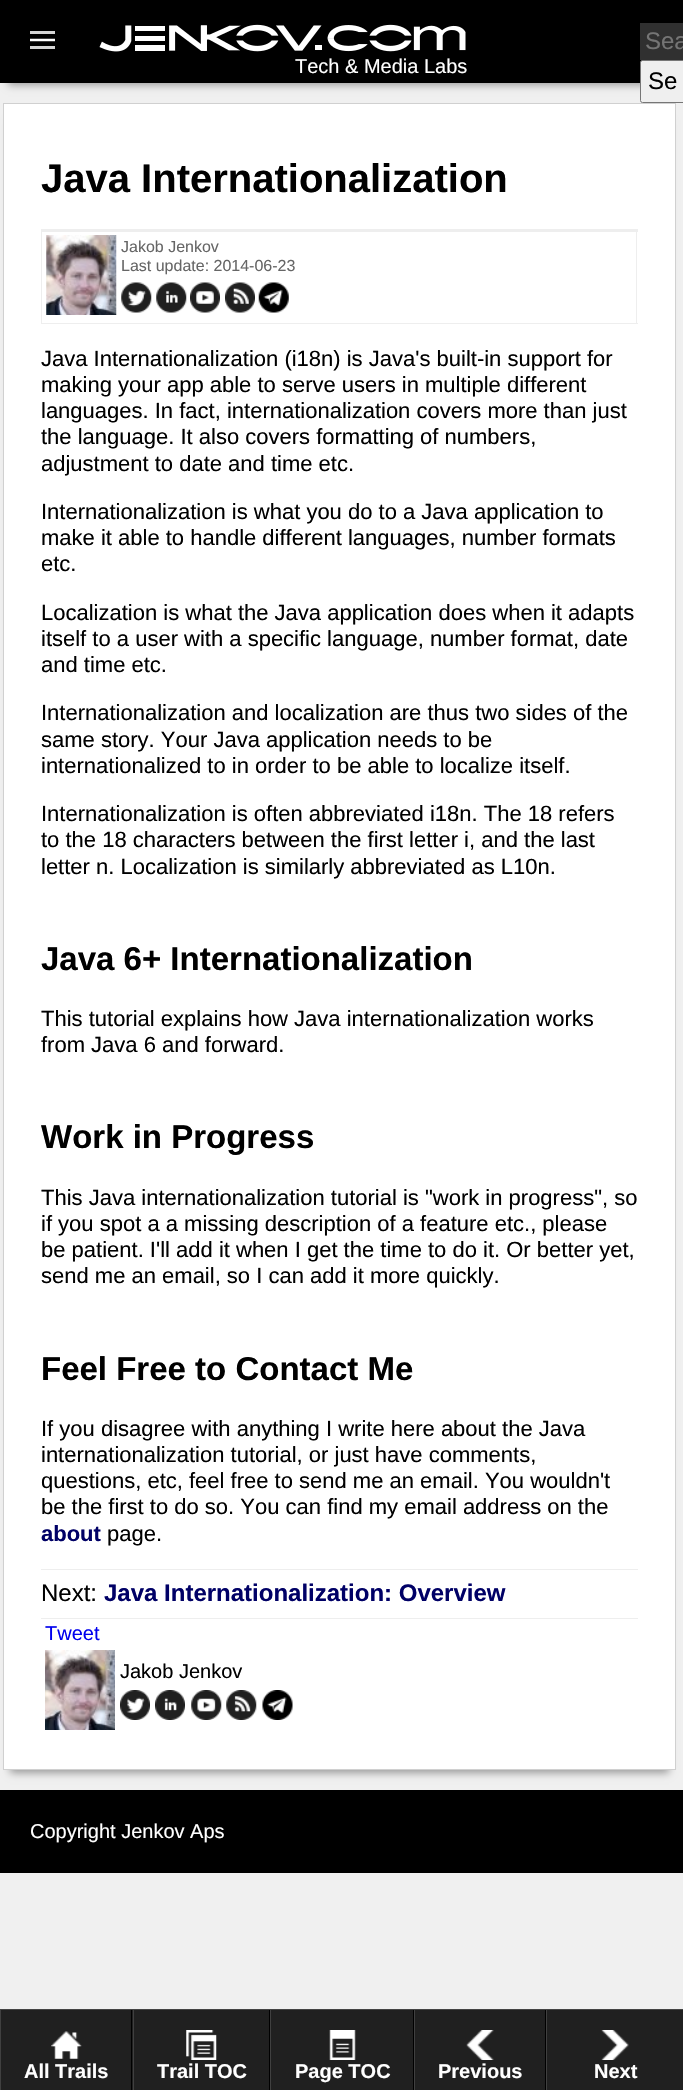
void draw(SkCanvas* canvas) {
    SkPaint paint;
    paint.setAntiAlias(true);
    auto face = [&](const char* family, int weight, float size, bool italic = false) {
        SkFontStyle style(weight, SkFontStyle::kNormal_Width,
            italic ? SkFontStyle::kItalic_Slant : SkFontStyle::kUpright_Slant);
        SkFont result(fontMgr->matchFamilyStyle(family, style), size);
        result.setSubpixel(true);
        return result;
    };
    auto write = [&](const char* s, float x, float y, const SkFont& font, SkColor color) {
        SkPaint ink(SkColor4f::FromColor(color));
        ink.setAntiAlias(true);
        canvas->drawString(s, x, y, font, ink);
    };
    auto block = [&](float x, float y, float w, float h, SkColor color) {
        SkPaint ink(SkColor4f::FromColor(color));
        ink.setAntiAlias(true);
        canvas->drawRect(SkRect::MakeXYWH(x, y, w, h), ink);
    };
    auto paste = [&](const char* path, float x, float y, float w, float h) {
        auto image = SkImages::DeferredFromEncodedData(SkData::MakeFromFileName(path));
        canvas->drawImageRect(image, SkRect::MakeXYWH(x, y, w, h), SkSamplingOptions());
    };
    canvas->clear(SkColorSetRGB(240, 240, 240));
    paint.setColor(SkColorSetRGB(153, 153, 153));
    paint.setMaskFilter(SkMaskFilter::MakeBlur(kNormal_SkBlurStyle, 4));
    canvas->drawRect(SkRect::MakeXYWH(8, 18, 668, 67), paint);
    paint.setMaskFilter(nullptr);
    block(0, 0, 683, 83, SK_ColorBLACK);
    block(30, 31, 25, 3, SkColorSetRGB(213, 213, 213));
    paint.setStyle(SkPaint::kStroke_Style);
    paint.setStrokeWidth(2.5f);
    paint.setColor(SK_ColorWHITE);
    canvas->drawPath(SkPathBuilder().moveTo(30, 40).lineTo(55, 40).detach(), paint);
    block(30, 46, 25, 3, SkColorSetRGB(213, 213, 213));
    paste("pic1.png", 99, 24, 367, 28);
    block(640, 23, 43, 37, SkColorSetRGB(48, 48, 48));
    auto kFont1 = face("Liberation Sans", 400, 24);
    write("Sea", 645, 49, kFont1, SkColorSetRGB(117, 117, 117));
    paint.setStyle(SkPaint::kFill_Style);
    paint.setColor(SkColorSetRGB(239, 239, 239));
    canvas->drawRoundRect(SkRect::MakeXYWH(640.5f, 60.5f, 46, 42), 2, 2, paint);
    paint.setStyle(SkPaint::kStroke_Style);
    paint.setStrokeWidth(1);
    paint.setColor(SkColorSetRGB(118, 118, 118));
    canvas->drawRoundRect(SkRect::MakeXYWH(640.5f, 60.5f, 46, 42), 2, 2, paint);
    write("Se", 648, 89, kFont1, SK_ColorBLACK);
    auto kFont2 = face("Liberation Sans", 400, 20);
    write("Tech & Media Labs", 295, 73, kFont2, SK_ColorWHITE);
    paint.setStyle(SkPaint::kFill_Style);
    paint.setColor(SkColorSetRGB(153, 153, 153));
    paint.setMaskFilter(SkMaskFilter::MakeBlur(kNormal_SkBlurStyle, 4));
    canvas->drawRect(SkRect::MakeXYWH(10, 120, 659, 1653), paint);
    paint.setMaskFilter(nullptr);
    paint.setColor(SK_ColorWHITE);
    canvas->drawRect(SkRect::MakeXYWH(3.5f, 103.5f, 672, 1666), paint);
    paint.setStyle(SkPaint::kStroke_Style);
    paint.setColor(SkColorSetRGB(208, 208, 208));
    canvas->drawRect(SkRect::MakeXYWH(3.5f, 103.5f, 672, 1666), paint);
    auto kFont3 = face("Liberation Sans", 700, 40);
    write("Java Internationalization", 41, 192, kFont3, SK_ColorBLACK);
    block(41, 229, 597, 3, SkColorSetRGB(238, 238, 238));
    block(636, 231, 1, 93, SkColorSetRGB(238, 238, 238));
    block(41, 323, 597, 1, SkColorSetRGB(238, 238, 238));
    block(41, 231, 1, 93, SkColorSetRGB(238, 238, 238));
    paste("pic2.png", 46, 235, 71, 80);
    auto kFont4 = face("Liberation Sans", 400, 16);
    write("Jakob Jenkov", 121, 252, kFont4, SkColorSetRGB(102, 102, 102));
    write("Last update: 2014-06-23", 121, 271, kFont4, SkColorSetRGB(102, 102, 102));
    paste("pic3.png", 121, 282, 31, 31);
    paste("pic4.png", 156, 282, 31, 31);
    paste("pic5.png", 190, 282, 30, 31);
    paste("pic6.png", 225, 282, 30, 31);
    paste("pic7.png", 258, 282, 31, 31);
    auto kFont5 = face("Liberation Sans", 400, 22);
    write("Java Internationalization (i18n) is Java's built-in support for", 41, 366, kFont5, SK_ColorBLACK);
    write("making your app able to serve users in multiple different", 41, 392, kFont5, SK_ColorBLACK);
    write("languages. In fact, internationalization covers more than just", 41, 418, kFont5, SK_ColorBLACK);
    write("the language. It also covers formatting of numbers,", 41, 444, kFont5, SK_ColorBLACK);
    write("adjustment to date and time etc.", 41, 471, kFont5, SK_ColorBLACK);
    write("Internationalization is what you do to a Java application to", 41, 519, kFont5, SK_ColorBLACK);
    write("make it able to handle different languages, number formats", 41, 545, kFont5, SK_ColorBLACK);
    write("etc.", 41, 571, kFont5, SK_ColorBLACK);
    write("Localization is what the Java application does when it adapts", 41, 620, kFont5, SK_ColorBLACK);
    write("itself to a user with a specific language, number format, date", 41, 646, kFont5, SK_ColorBLACK);
    write("and time etc.", 41, 672, kFont5, SK_ColorBLACK);
    write("Internationalization and localization are thus two sides of the", 41, 720, kFont5, SK_ColorBLACK);
    write("same story. Your Java application needs to be", 41, 747, kFont5, SK_ColorBLACK);
    write("internationalized to in order to be able to localize itself.", 41, 773, kFont5, SK_ColorBLACK);
    write("Internationalization is often abbreviated i18n. The 18 refers", 41, 821, kFont5, SK_ColorBLACK);
    write("to the 18 characters between the first letter i, and the last", 41, 847, kFont5, SK_ColorBLACK);
    write("letter n. Localization is similarly abbreviated as L10n.", 41, 874, kFont5, SK_ColorBLACK);
    auto kFont6 = face("Liberation Sans", 700, 33);
    write("Java 6+ Internationalization", 41, 970, kFont6, SK_ColorBLACK);
    write("This tutorial explains how Java internationalization works", 41, 1026, kFont5, SK_ColorBLACK);
    write("from Java 6 and forward.", 41, 1052, kFont5, SK_ColorBLACK);
    write("Work in Progress", 41, 1148, kFont6, SK_ColorBLACK);
    write("This Java internationalization tutorial is \"work in progress\", so", 41, 1205, kFont5, SK_ColorBLACK);
    write("if you spot a a missing description of a feature etc., please", 41, 1231, kFont5, SK_ColorBLACK);
    write("be patient. I'll add it when I get the time to do it. Or better yet,", 41, 1257, kFont5, SK_ColorBLACK);
    write("send me an email, so I can add it more quickly.", 41, 1283, kFont5, SK_ColorBLACK);
    write("Feel Free to Contact Me", 41, 1380, kFont6, SK_ColorBLACK);
    write("If you disagree with anything I write here about the Java", 41, 1436, kFont5, SK_ColorBLACK);
    write("internationalization tutorial, or just have comments,", 41, 1462, kFont5, SK_ColorBLACK);
    write("questions, etc, feel free to send me an email. You wouldn't", 41, 1488, kFont5, SK_ColorBLACK);
    write("be the first to do so. You can find my email address on the", 41, 1514, kFont5, SK_ColorBLACK);
    auto kFont7 = face("Liberation Sans", 700, 22);
    write("about", 41, 1541, kFont7, SkColorSetRGB(0, 0, 102));
    write("page.", 107, 1541, kFont5, SK_ColorBLACK);
    block(41, 1569, 597, 1, SkColorSetRGB(238, 238, 238));
    block(41, 1618, 597, 1, SkColorSetRGB(238, 238, 238));
    write("Next:", 41, 1601, kFont1, SK_ColorBLACK);
    auto kFont8 = face("Liberation Sans", 700, 24);
    write("Java Internationalization: Overview", 104, 1601, kFont8, SkColorSetRGB(0, 0, 102));
    write("Tweet", 45, 1640, kFont2, SkColorSetRGB(0, 0, 238));
    paste("pic8.png", 45, 1650, 70, 80);
    write("Jakob Jenkov", 120, 1678, kFont2, SK_ColorBLACK);
    paste("pic9.png", 120, 1690, 30, 30);
    paste("pic10.png", 155, 1690, 30, 30);
    paste("pic11.png", 191, 1690, 31, 30);
    paste("pic12.png", 226, 1690, 31, 30);
    paste("pic13.png", 262, 1690, 31, 30);
    block(0, 1790, 683, 83, SK_ColorBLACK);
    write("Copyright Jenkov Aps", 30, 1838, kFont2, SK_ColorWHITE);
    block(1, 2010, 682, 80, SkColorSetRGB(32, 32, 32));
    block(0, 2009, 683, 1, SkColorSetRGB(68, 68, 68));
    block(131, 2010, 1, 80, SK_ColorBLACK);
    block(0, 2010, 1, 80, SkColorSetRGB(64, 64, 64));
    paste("pic14.png", 51, 2031, 31, 28);
    auto kFont9 = face("Liberation Sans", 700, 20);
    write("All Trails", 24, 2078, kFont9, SK_ColorWHITE);
    block(269, 2010, 1, 80, SK_ColorBLACK);
    block(133, 2010, 1, 80, SkColorSetRGB(64, 64, 64));
    paste("pic15.png", 186, 2030, 31, 30);
    write("Trail TOC", 157, 2078, kFont9, SK_ColorWHITE);
    block(413, 2010, 1, 80, SK_ColorBLACK);
    block(270, 2010, 1, 80, SkColorSetRGB(64, 64, 64));
    paste("pic16.png", 329, 2030, 27, 30);
    write("Page TOC", 295, 2078, kFont9, SK_ColorWHITE);
    block(545, 2010, 1, 80, SK_ColorBLACK);
    block(414, 2010, 1, 80, SkColorSetRGB(64, 64, 64));
    paste("pic17.png", 466, 2030, 28, 30);
    write("Previous", 438, 2078, kFont9, SK_ColorWHITE);
    block(546, 2010, 1, 80, SkColorSetRGB(64, 64, 64));
    paste("pic18.png", 601, 2030, 28, 30);
    write("Next", 594, 2078, kFont9, SK_ColorWHITE);
}
